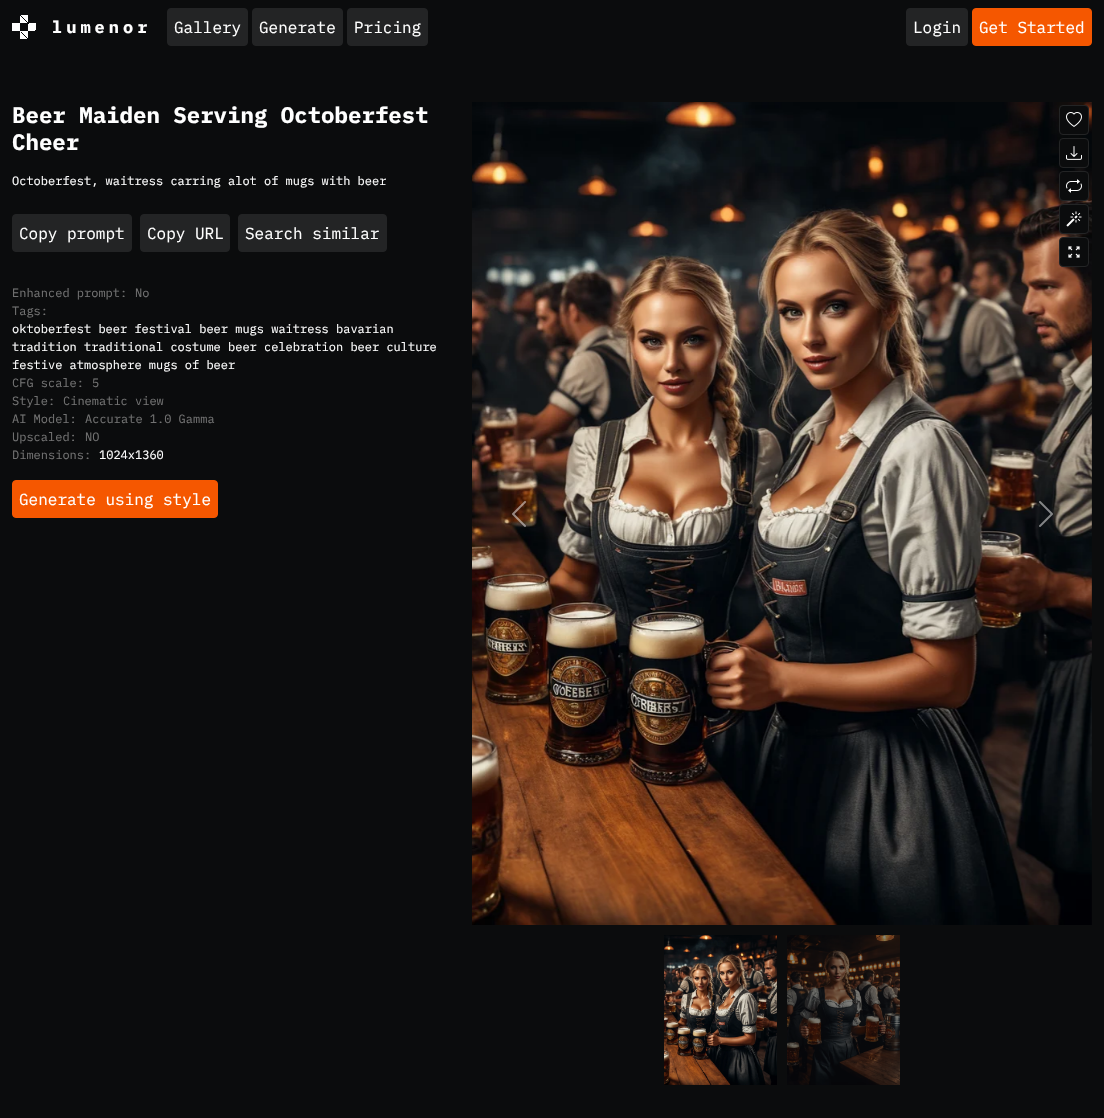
void draw(SkCanvas* canvas) {
    SkPaint paint;
    paint.setAntiAlias(true);
    auto face = [&](const char* family, int weight, float size, bool italic = false) {
        SkFontStyle style(weight, SkFontStyle::kNormal_Width,
            italic ? SkFontStyle::kItalic_Slant : SkFontStyle::kUpright_Slant);
        SkFont result(fontMgr->matchFamilyStyle(family, style), size);
        result.setSubpixel(true);
        return result;
    };
    auto write = [&](const char* s, float x, float y, const SkFont& font, SkColor color) {
        SkPaint ink(SkColor4f::FromColor(color));
        ink.setAntiAlias(true);
        canvas->drawString(s, x, y, font, ink);
    };
    auto writeSpaced = [&](const char* s, float x, float y, const SkFont& font, const SkPaint& ink, float letter, float word) {
        std::vector<SkGlyphID> glyphs(font.countText(s, strlen(s), SkTextEncoding::kUTF8));
        std::vector<float> xs(glyphs.size());
        font.textToGlyphs(s, strlen(s), SkTextEncoding::kUTF8, glyphs);
        font.getXPos(glyphs, xs, x);
        float extra = 0;
        for (size_t i = 0; i < glyphs.size(); i++) {
            xs[i] += extra;
            extra += letter + word * (glyphs[i] == font.unicharToGlyph(' '));
        }
        canvas->drawTextBlob(SkTextBlob::MakeFromPosHGlyphs(glyphs, xs, y, font), 0, 0, ink);
    };
    auto paste = [&](const char* path, float x, float y, float w, float h) {
        auto image = SkImages::DeferredFromEncodedData(SkData::MakeFromFileName(path));
        canvas->drawImageRect(image, SkRect::MakeXYWH(x, y, w, h), SkSamplingOptions());
    };
    canvas->clear(SkColorSetRGB(11, 12, 13));
    {
        const SkColor colors[] = {SK_ColorWHITE, SkColorSetRGB(11, 12, 13), SkColorSetRGB(11, 12, 13), SK_ColorWHITE, SK_ColorWHITE};
        const float stops[] = {0.25f, 0.25f, 0.75f, 0.75f, 1};
        const SkPoint ends[] = {{20, 23}, {36, 7}};
        paint.setShader(SkGradientShader::MakeLinear(ends, colors, stops, 5, SkTileMode::kClamp));
        paint.setAlpha(255);
    }
    canvas->drawRect(SkRect::MakeXYWH(20, 16, 7, 7), paint);
    {
        const SkColor colors[] = {SK_ColorWHITE, SkColorSetRGB(11, 12, 13), SkColorSetRGB(11, 12, 13), SK_ColorWHITE, SK_ColorWHITE};
        const float stops[] = {0.25f, 0.25f, 0.75f, 0.75f, 1};
        const SkPoint ends[] = {{4, 39}, {20, 23}};
        paint.setShader(SkGradientShader::MakeLinear(ends, colors, stops, 5, SkTileMode::kClamp));
        paint.setAlpha(255);
    }
    canvas->drawRect(SkRect::MakeXYWH(12, 23, 8, 16), paint);
    {
        const SkColor colors[] = {SK_ColorWHITE, SkColorSetRGB(11, 12, 13), SkColorSetRGB(11, 12, 13), SK_ColorWHITE, SK_ColorWHITE};
        const float stops[] = {0.25f, 0.25f, 0.75f, 0.75f, 1};
        const SkPoint ends[] = {{20, 39}, {36, 23}};
        paint.setShader(SkGradientShader::MakeLinear(ends, colors, stops, 5, SkTileMode::kClamp));
        paint.setAlpha(255);
    }
    canvas->drawRect(SkRect::MakeXYWH(20, 23, 16, 16), paint);
    {
        const SkColor colors[] = {SK_ColorWHITE, SkColorSetARGB(0, 255, 255, 255), SkColorSetARGB(0, 255, 255, 255), SK_ColorWHITE, SK_ColorWHITE};
        const float stops[] = {0.25f, 0.25f, 0.75f, 0.75f, 1};
        const SkPoint ends[] = {{12, 31}, {28, 15}};
        paint.setShader(SkGradientShader::MakeLinear(ends, colors, stops, 5, SkTileMode::kClamp));
        paint.setAlpha(255);
    }
    canvas->drawRect(SkRect::MakeXYWH(12, 15, 16, 16), paint);
    {
        const SkColor colors[] = {SK_ColorWHITE, SkColorSetARGB(0, 255, 255, 255), SkColorSetARGB(0, 255, 255, 255), SK_ColorWHITE, SK_ColorWHITE};
        const float stops[] = {0.25f, 0.25f, 0.75f, 0.75f, 1};
        const SkPoint ends[] = {{28, 31}, {44, 15}};
        paint.setShader(SkGradientShader::MakeLinear(ends, colors, stops, 5, SkTileMode::kClamp));
        paint.setAlpha(255);
    }
    canvas->drawRect(SkRect::MakeXYWH(28, 24, 7, 7), paint);
    {
        const SkColor colors[] = {SK_ColorWHITE, SkColorSetARGB(0, 255, 255, 255), SkColorSetARGB(0, 255, 255, 255), SK_ColorWHITE, SK_ColorWHITE};
        const float stops[] = {0.25f, 0.25f, 0.75f, 0.75f, 1};
        const SkPoint ends[] = {{12, 47}, {28, 31}};
        paint.setShader(SkGradientShader::MakeLinear(ends, colors, stops, 5, SkTileMode::kClamp));
        paint.setAlpha(255);
    }
    canvas->drawRect(SkRect::MakeXYWH(12, 31, 16, 8), paint);
    auto kFont1 = face("IBM Plex Mono", 700, 17);
    paint.setShader(nullptr);
    paint.setColor(SK_ColorWHITE);
    writeSpaced("lumenor", 52, 33, kFont1, paint, 4, 0);
    paint.setColor(SkColorSetRGB(35, 36, 37));
    canvas->drawRoundRect(SkRect::MakeXYWH(167.5f, 8.5f, 80, 37), 3.5f, 3.5f, paint);
    paint.setStyle(SkPaint::kStroke_Style);
    paint.setStrokeWidth(1);
    canvas->drawRoundRect(SkRect::MakeXYWH(167.5f, 8.5f, 80, 37), 3.5f, 3.5f, paint);
    auto kFont2 = face("IBM Plex Mono", 400, 16);
    write("Gallery", 174, 33, kFont2, SK_ColorWHITE);
    paint.setStyle(SkPaint::kFill_Style);
    canvas->drawRoundRect(SkRect::MakeXYWH(252.5f, 8.5f, 90, 37), 3.5f, 3.5f, paint);
    paint.setStyle(SkPaint::kStroke_Style);
    canvas->drawRoundRect(SkRect::MakeXYWH(252.5f, 8.5f, 90, 37), 3.5f, 3.5f, paint);
    write("Generate", 259, 33, kFont2, SK_ColorWHITE);
    paint.setStyle(SkPaint::kFill_Style);
    canvas->drawRoundRect(SkRect::MakeXYWH(347.5f, 8.5f, 80, 37), 3.5f, 3.5f, paint);
    paint.setStyle(SkPaint::kStroke_Style);
    canvas->drawRoundRect(SkRect::MakeXYWH(347.5f, 8.5f, 80, 37), 3.5f, 3.5f, paint);
    write("Pricing", 354, 33, kFont2, SK_ColorWHITE);
    paint.setStyle(SkPaint::kFill_Style);
    canvas->drawRoundRect(SkRect::MakeXYWH(906.5f, 8.5f, 61, 37), 3.5f, 3.5f, paint);
    paint.setStyle(SkPaint::kStroke_Style);
    canvas->drawRoundRect(SkRect::MakeXYWH(906.5f, 8.5f, 61, 37), 3.5f, 3.5f, paint);
    write("Login", 913, 33, kFont2, SK_ColorWHITE);
    paint.setStyle(SkPaint::kFill_Style);
    paint.setColor(SkColorSetRGB(245, 87, 0));
    canvas->drawRoundRect(SkRect::MakeXYWH(972.5f, 8.5f, 119, 37), 3.5f, 3.5f, paint);
    paint.setStyle(SkPaint::kStroke_Style);
    canvas->drawRoundRect(SkRect::MakeXYWH(972.5f, 8.5f, 119, 37), 3.5f, 3.5f, paint);
    write("Get Started", 979, 33, kFont2, SK_ColorWHITE);
    auto kFont3 = face("IBM Plex Mono", 700, 22.4f);
    write("Beer Maiden Serving Octoberfest", 12, 123, kFont3, SK_ColorWHITE);
    write("Cheer", 12, 150, kFont3, SK_ColorWHITE);
    auto kFont4 = face("IBM Plex Mono", 400, 12);
    write("Octoberfest, waitress carring alot of mugs with beer", 12, 185, kFont4, SK_ColorWHITE);
    paint.setStyle(SkPaint::kFill_Style);
    paint.setColor(SkColorSetRGB(35, 36, 37));
    canvas->drawRoundRect(SkRect::MakeXYWH(12.5f, 214.5f, 119, 37), 3.5f, 3.5f, paint);
    paint.setStyle(SkPaint::kStroke_Style);
    canvas->drawRoundRect(SkRect::MakeXYWH(12.5f, 214.5f, 119, 37), 3.5f, 3.5f, paint);
    write("Copy prompt", 19, 239, kFont2, SK_ColorWHITE);
    paint.setStyle(SkPaint::kFill_Style);
    canvas->drawRoundRect(SkRect::MakeXYWH(140.5f, 214.5f, 89, 37), 3.5f, 3.5f, paint);
    paint.setStyle(SkPaint::kStroke_Style);
    canvas->drawRoundRect(SkRect::MakeXYWH(140.5f, 214.5f, 89, 37), 3.5f, 3.5f, paint);
    write("Copy URL", 147, 239, kFont2, SK_ColorWHITE);
    paint.setStyle(SkPaint::kFill_Style);
    canvas->drawRoundRect(SkRect::MakeXYWH(238.5f, 214.5f, 148, 37), 3.5f, 3.5f, paint);
    paint.setStyle(SkPaint::kStroke_Style);
    canvas->drawRoundRect(SkRect::MakeXYWH(238.5f, 214.5f, 148, 37), 3.5f, 3.5f, paint);
    write("Search similar", 245, 239, kFont2, SK_ColorWHITE);
    write("Enhanced prompt:", 12, 297, kFont4, SkColorSetRGB(114, 114, 114));
    write("No", 135, 297, kFont4, SkColorSetRGB(114, 114, 114));
    write("Tags:", 12, 315, kFont4, SkColorSetRGB(114, 114, 114));
    write("oktoberfest beer festival beer mugs waitress bavarian", 12, 333, kFont4, SK_ColorWHITE);
    write("tradition traditional costume beer celebration beer culture", 12, 351, kFont4, SK_ColorWHITE);
    write("festive atmosphere mugs of beer", 12, 369, kFont4, SK_ColorWHITE);
    write("CFG scale:", 12, 387, kFont4, SkColorSetRGB(114, 114, 114));
    write("5", 92, 387, kFont4, SkColorSetRGB(114, 114, 114));
    write("Style:", 12, 405, kFont4, SkColorSetRGB(114, 114, 114));
    write("Cinematic view", 63, 405, kFont4, SkColorSetRGB(114, 114, 114));
    write("AI Model:", 12, 423, kFont4, SkColorSetRGB(114, 114, 114));
    write("Accurate 1.0 Gamma", 85, 423, kFont4, SkColorSetRGB(114, 114, 114));
    write("Upscaled:", 12, 441, kFont4, SkColorSetRGB(114, 114, 114));
    write("NO", 85, 441, kFont4, SkColorSetRGB(114, 114, 114));
    write("Dimensions:", 12, 459, kFont4, SkColorSetRGB(114, 114, 114));
    write("1024x1360", 99, 459, kFont4, SK_ColorWHITE);
    paint.setStyle(SkPaint::kFill_Style);
    paint.setColor(SkColorSetRGB(245, 87, 0));
    canvas->drawRoundRect(SkRect::MakeXYWH(12.5f, 480.5f, 205, 37), 3.5f, 3.5f, paint);
    paint.setStyle(SkPaint::kStroke_Style);
    canvas->drawRoundRect(SkRect::MakeXYWH(12.5f, 480.5f, 205, 37), 3.5f, 3.5f, paint);
    write("Generate using style", 19, 505, kFont2, SK_ColorWHITE);
    paste("pic1.png", 472, 102, 620, 823);
    paint.setStyle(SkPaint::kFill_Style);
    paint.setColor(SkColorSetRGB(11, 12, 13));
    canvas->drawRoundRect(SkRect::MakeXYWH(1059.5f, 105.5f, 29, 29), 3.5f, 3.5f, paint);
    paint.setStyle(SkPaint::kStroke_Style);
    paint.setColor(SkColorSetRGB(35, 36, 37));
    canvas->drawRoundRect(SkRect::MakeXYWH(1059.5f, 105.5f, 29, 29), 3.5f, 3.5f, paint);
    paste("pic2.png", 1066, 112, 16, 15);
    paint.setStyle(SkPaint::kFill_Style);
    paint.setColor(SkColorSetRGB(11, 12, 13));
    canvas->drawRoundRect(SkRect::MakeXYWH(1059.5f, 138.5f, 29, 29), 3.5f, 3.5f, paint);
    paint.setStyle(SkPaint::kStroke_Style);
    paint.setColor(SkColorSetRGB(35, 36, 37));
    canvas->drawRoundRect(SkRect::MakeXYWH(1059.5f, 138.5f, 29, 29), 3.5f, 3.5f, paint);
    paste("pic3.png", 1066, 146, 16, 14);
    paint.setStyle(SkPaint::kFill_Style);
    paint.setColor(SkColorSetRGB(11, 12, 13));
    canvas->drawRoundRect(SkRect::MakeXYWH(1059.5f, 171.5f, 29, 29), 3.5f, 3.5f, paint);
    paint.setStyle(SkPaint::kStroke_Style);
    paint.setColor(SkColorSetRGB(35, 36, 37));
    canvas->drawRoundRect(SkRect::MakeXYWH(1059.5f, 171.5f, 29, 29), 3.5f, 3.5f, paint);
    paste("pic4.png", 1066, 179, 16, 14);
    paint.setStyle(SkPaint::kFill_Style);
    paint.setColor(SkColorSetRGB(11, 12, 13));
    canvas->drawRoundRect(SkRect::MakeXYWH(1059.5f, 204.5f, 29, 29), 3.5f, 3.5f, paint);
    paint.setStyle(SkPaint::kStroke_Style);
    paint.setColor(SkColorSetRGB(35, 36, 37));
    canvas->drawRoundRect(SkRect::MakeXYWH(1059.5f, 204.5f, 29, 29), 3.5f, 3.5f, paint);
    paste("pic5.png", 1066, 211, 16, 16);
    paint.setStyle(SkPaint::kFill_Style);
    paint.setColor(SkColorSetRGB(11, 12, 13));
    canvas->drawRoundRect(SkRect::MakeXYWH(1059.5f, 237.5f, 29, 29), 3.5f, 3.5f, paint);
    paint.setStyle(SkPaint::kStroke_Style);
    paint.setColor(SkColorSetRGB(35, 36, 37));
    canvas->drawRoundRect(SkRect::MakeXYWH(1059.5f, 237.5f, 29, 29), 3.5f, 3.5f, paint);
    paste("pic6.png", 1068, 246, 12, 12);
    paste("pic7.png", 512, 501, 14, 26);
    paste("pic8.png", 1039, 501, 14, 26);
    paste("pic9.png", 664, 935, 113, 150);
    paste("pic10.png", 787, 935, 113, 150);
}
